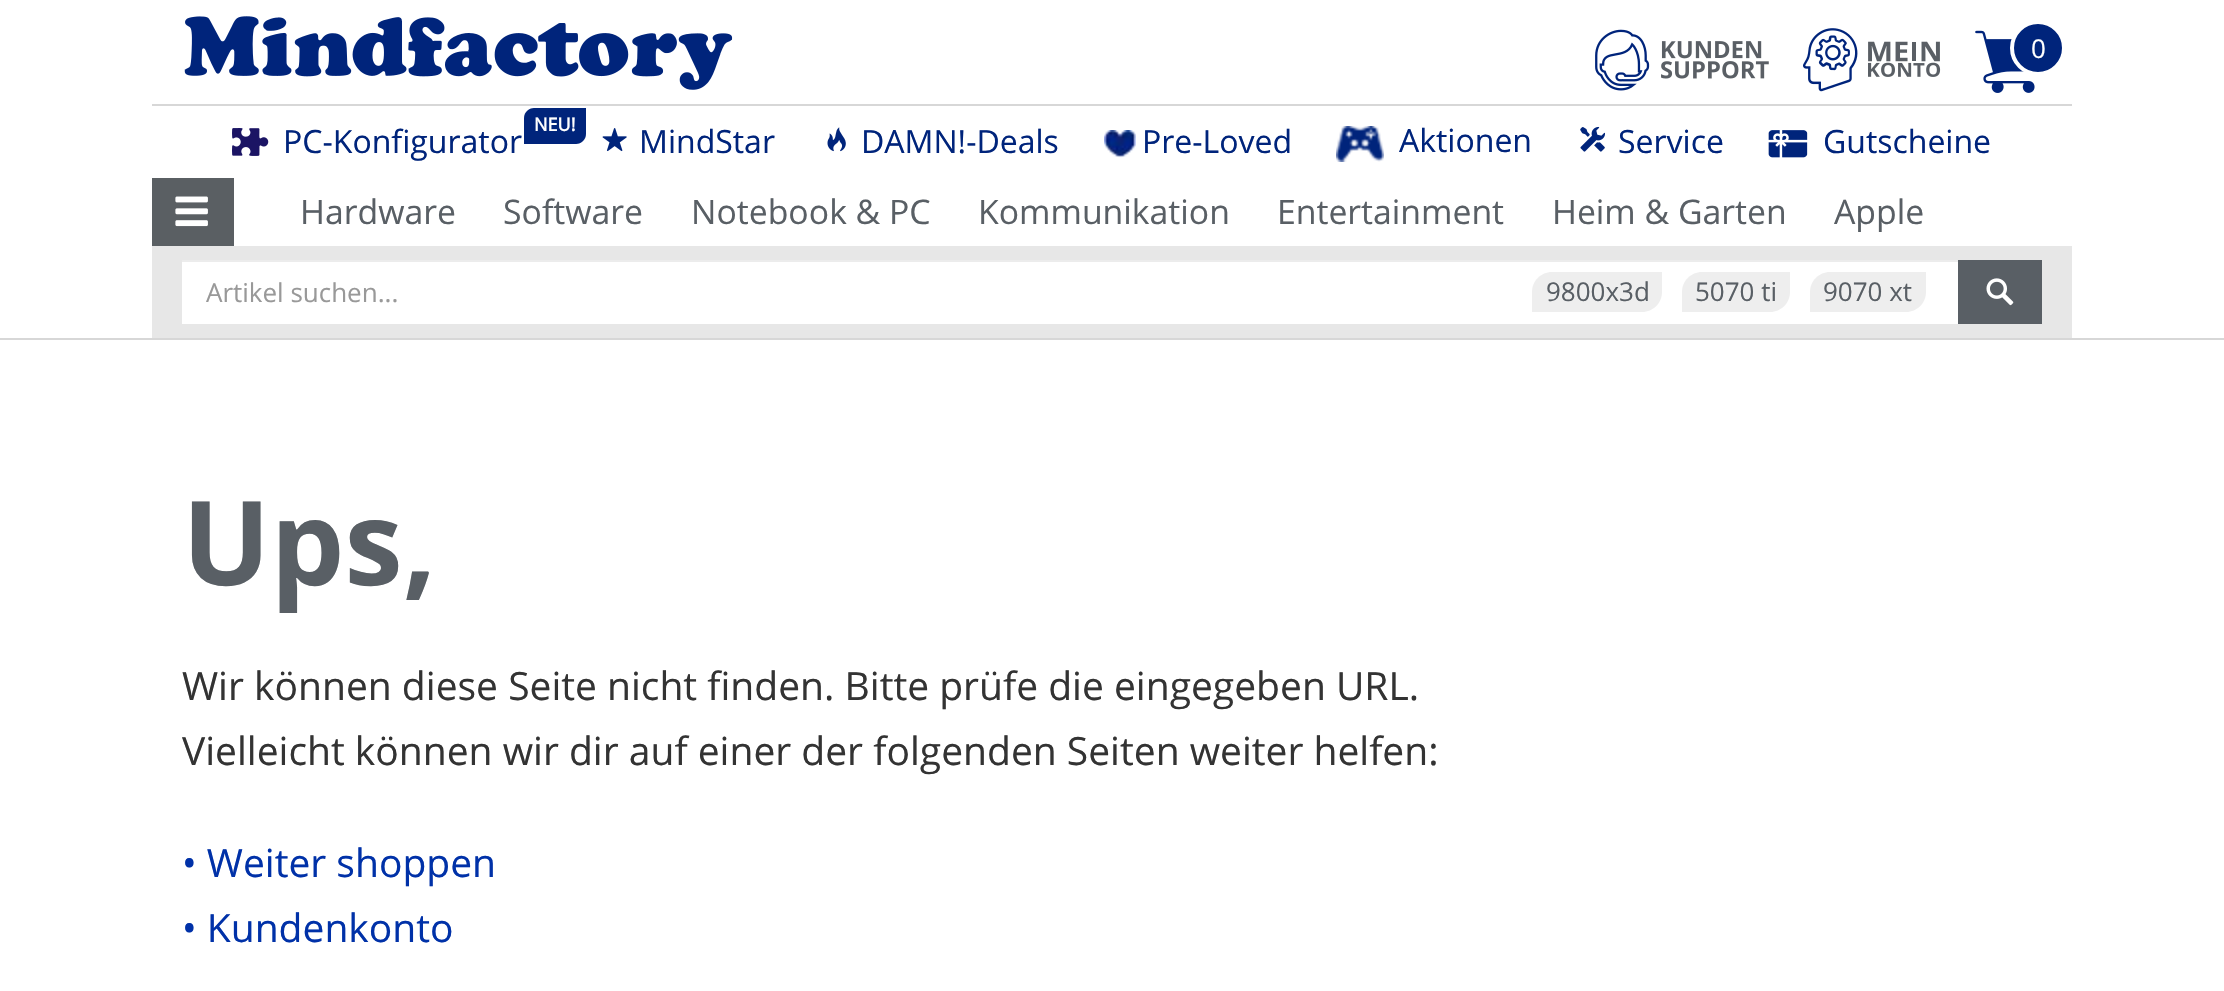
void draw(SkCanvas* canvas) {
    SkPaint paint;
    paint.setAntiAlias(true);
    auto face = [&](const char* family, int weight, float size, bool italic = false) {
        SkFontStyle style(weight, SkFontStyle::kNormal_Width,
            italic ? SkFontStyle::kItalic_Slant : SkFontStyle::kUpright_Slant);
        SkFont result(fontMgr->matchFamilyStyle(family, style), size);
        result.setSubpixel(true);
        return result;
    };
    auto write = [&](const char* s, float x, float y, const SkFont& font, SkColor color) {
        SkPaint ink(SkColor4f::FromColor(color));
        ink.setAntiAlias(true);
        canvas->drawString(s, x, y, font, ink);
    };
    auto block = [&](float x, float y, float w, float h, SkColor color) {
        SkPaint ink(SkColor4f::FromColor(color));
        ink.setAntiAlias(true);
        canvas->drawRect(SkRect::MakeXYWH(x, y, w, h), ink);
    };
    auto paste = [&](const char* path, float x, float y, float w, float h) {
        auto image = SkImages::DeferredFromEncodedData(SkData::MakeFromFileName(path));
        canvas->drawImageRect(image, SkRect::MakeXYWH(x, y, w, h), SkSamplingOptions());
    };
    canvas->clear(SK_ColorWHITE);
    paste("pic1.png", 184, 16, 549, 74);
    paste("pic2.png", 1595, 29, 174, 62);
    paste("pic3.png", 1803, 28, 138, 64);
    paste("pic4.png", 1975, 30, 60, 63);
    paint.setColor(SkColorSetRGB(0, 36, 123));
    canvas->drawCircle(2038, 48, 26, paint);
    paint.setStyle(SkPaint::kStroke_Style);
    paint.setStrokeWidth(4);
    paint.setColor(SK_ColorWHITE);
    canvas->drawCircle(2038, 48, 26, paint);
    auto kFont1 = face("Open Sans", 400, 26);
    write("0", 2031, 58, kFont1, SK_ColorWHITE);
    block(152, 104, 1920, 2, SkColorSetRGB(215, 215, 215));
    paint.setStyle(SkPaint::kFill_Style);
    paint.setColor(SkColorSetRGB(0, 36, 123));
    canvas->drawPath(SkPathBuilder().moveTo(534, 108).lineTo(586, 108).lineTo(586, 134).cubicTo(586, 139.5f, 581.5f, 144, 576, 144).lineTo(524, 144).lineTo(524, 118).cubicTo(524, 112.5f, 528.5f, 108, 534, 108).close().detach(), paint);
    auto kFont2 = face("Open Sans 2", 700, 18);
    write("NEU!", 534, 131, kFont2, SK_ColorWHITE);
    paste("pic5.png", 232, 128, 37, 28);
    auto kFont3 = face("Open Sans", 400, 32);
    write("PC-Konfigurator", 283, 153, kFont3, SkColorSetRGB(0, 36, 123));
    paste("pic6.png", 602, 128, 25, 24);
    write("MindStar", 639, 153, kFont3, SkColorSetRGB(0, 36, 123));
    paste("pic7.png", 827, 127, 19, 25);
    write("DAMN!-Deals", 861, 153, kFont3, SkColorSetRGB(0, 36, 123));
    paste("pic8.png", 1104, 130, 32, 28);
    write("Pre-Loved", 1142, 153, kFont3, SkColorSetRGB(0, 36, 123));
    paste("pic9.png", 1336, 126, 48, 36);
    write("Aktionen", 1399, 152, kFont3, SkColorSetRGB(0, 36, 123));
    paste("pic10.png", 1580, 126, 25, 26);
    write("Service", 1618, 153, kFont3, SkColorSetRGB(0, 36, 123));
    paste("pic11.png", 1768, 130, 40, 28);
    write("Gutscheine", 1823, 153, kFont3, SkColorSetRGB(0, 36, 123));
    block(152, 178, 82, 68, SkColorSetRGB(90, 95, 99));
    paste("pic12.png", 175, 196, 33, 31);
    auto kFont4 = face("Open Sans", 400, 33.75f);
    write("Hardware", 300, 224, kFont4, SkColorSetRGB(89, 95, 101));
    write("Software", 503, 224, kFont4, SkColorSetRGB(89, 95, 101));
    write("Notebook & PC", 691, 224, kFont4, SkColorSetRGB(89, 95, 101));
    write("Kommunikation", 978, 224, kFont4, SkColorSetRGB(89, 95, 101));
    write("Entertainment", 1277, 224, kFont4, SkColorSetRGB(89, 95, 101));
    write("Heim & Garten", 1552, 224, kFont4, SkColorSetRGB(89, 95, 101));
    write("Apple", 1834, 224, kFont4, SkColorSetRGB(89, 95, 101));
    block(152, 246, 1920, 92, SkColorSetRGB(231, 231, 231));
    block(182, 262, 1776, 62, SK_ColorWHITE);
    block(182, 260, 1776, 2, SkColorSetRGB(236, 236, 236));
    write("Artikel suchen...", 206, 302, kFont1, SkColorSetRGB(153, 153, 153));
    paint.setColor(SkColorSetRGB(238, 238, 238));
    canvas->drawPath(SkPathBuilder().moveTo(1552, 272).lineTo(1662, 272).lineTo(1662, 292).cubicTo(1662, 303, 1653, 312, 1642, 312).lineTo(1532, 312).lineTo(1532, 292).cubicTo(1532, 281, 1541, 272, 1552, 272).close().detach(), paint);
    write("9800x3d", 1546, 301, kFont1, SkColorSetRGB(89, 95, 101));
    canvas->drawPath(SkPathBuilder().moveTo(1702, 272).lineTo(1790, 272).lineTo(1790, 292).cubicTo(1790, 303, 1781, 312, 1770, 312).lineTo(1682, 312).lineTo(1682, 292).cubicTo(1682, 281, 1691, 272, 1702, 272).close().detach(), paint);
    write("5070 ti", 1695, 301, kFont1, SkColorSetRGB(89, 95, 101));
    canvas->drawPath(SkPathBuilder().moveTo(1830, 272).lineTo(1926, 272).lineTo(1926, 292).cubicTo(1926, 303, 1917, 312, 1906, 312).lineTo(1810, 312).lineTo(1810, 292).cubicTo(1810, 281, 1819, 272, 1830, 272).close().detach(), paint);
    write("9070 xt", 1823, 301, kFont1, SkColorSetRGB(89, 95, 101));
    block(1958, 260, 84, 64, SkColorSetRGB(89, 95, 101));
    paste("pic13.png", 1986, 278, 28, 28);
    block(0, 338, 2224, 2, SkColorSetRGB(215, 215, 215));
    auto kFont5 = face("Open Sans", 700, 117);
    write("Ups,", 182, 585, kFont5, SkColorSetRGB(89, 95, 101));
    auto kFont6 = face("Open Sans", 400, 39);
    write("Wir können diese Seite nicht finden. Bitte prüfe die eingegeben URL.", 182, 700, kFont6, SkColorSetRGB(51, 51, 51));
    write("Vielleicht können wir dir auf einer der folgenden Seiten weiter helfen:", 182, 765, kFont6, SkColorSetRGB(51, 51, 51));
    write("• Weiter shoppen", 182, 877, kFont6, SkColorSetRGB(0, 49, 168));
    write("• Kundenkonto", 182, 942, kFont6, SkColorSetRGB(0, 49, 168));
}
